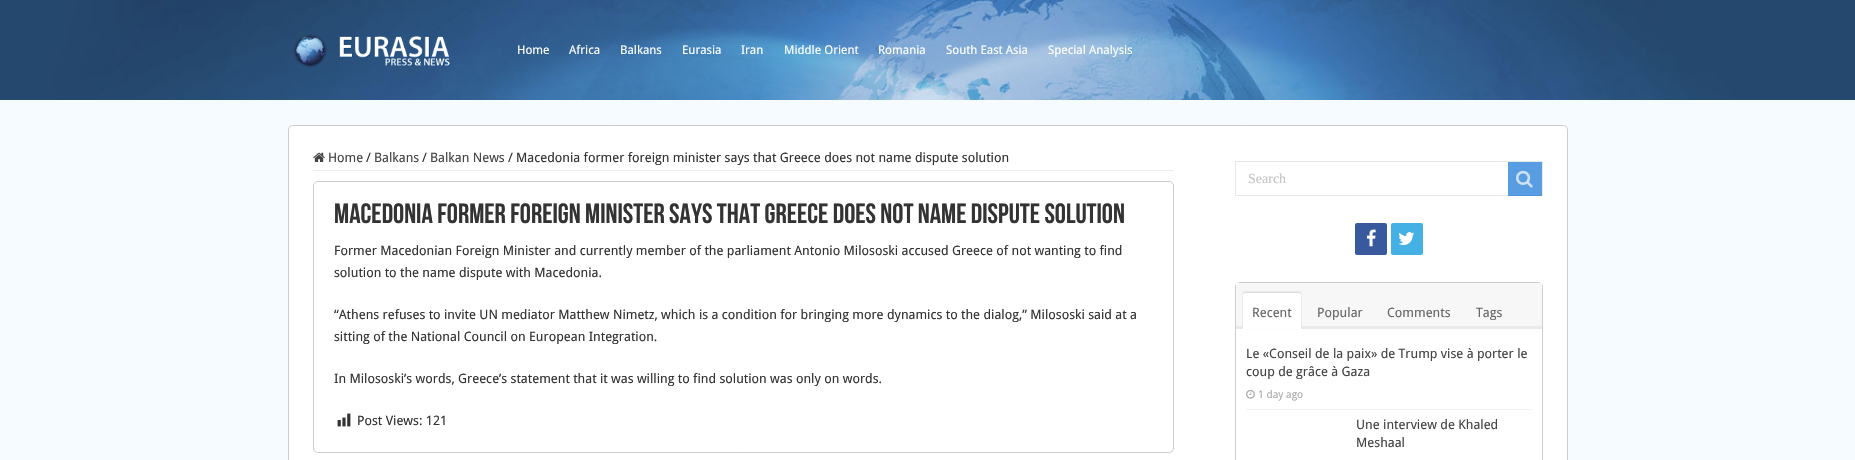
void draw(SkCanvas* canvas) {
    SkPaint paint;
    paint.setAntiAlias(true);
    auto face = [&](const char* family, int weight, float size, bool italic = false) {
        SkFontStyle style(weight, SkFontStyle::kNormal_Width,
            italic ? SkFontStyle::kItalic_Slant : SkFontStyle::kUpright_Slant);
        SkFont result(fontMgr->matchFamilyStyle(family, style), size);
        result.setSubpixel(true);
        return result;
    };
    auto write = [&](const char* s, float x, float y, const SkFont& font, SkColor color) {
        SkPaint ink(SkColor4f::FromColor(color));
        ink.setAntiAlias(true);
        canvas->drawString(s, x, y, font, ink);
    };
    auto block = [&](float x, float y, float w, float h, SkColor color) {
        SkPaint ink(SkColor4f::FromColor(color));
        ink.setAntiAlias(true);
        canvas->drawRect(SkRect::MakeXYWH(x, y, w, h), ink);
    };
    auto card = [&](float x, float y, float w, float h, float radius, SkColor color) {
        SkPaint ink(SkColor4f::FromColor(color));
        ink.setAntiAlias(true);
        canvas->drawRoundRect(SkRect::MakeXYWH(x, y, w, h), radius, radius, ink);
    };
    auto paste = [&](const char* path, float x, float y, float w, float h) {
        auto image = SkImages::DeferredFromEncodedData(SkData::MakeFromFileName(path));
        canvas->drawImageRect(image, SkRect::MakeXYWH(x, y, w, h), SkSamplingOptions());
    };
    canvas->clear(SkColorSetRGB(245, 251, 255));
    paste("pic1.png", 0, 0, 1855, 100);
    paste("pic2.png", 293, 34, 158, 34);
    auto kFont1 = face("Droid Sans", 400, 12);
    write("Home", 517, 54, kFont1, SK_ColorWHITE);
    write("Africa", 569, 54, kFont1, SK_ColorWHITE);
    write("Balkans", 620, 54, kFont1, SK_ColorWHITE);
    write("Eurasia", 682, 54, kFont1, SK_ColorWHITE);
    write("Iran", 741, 54, kFont1, SK_ColorWHITE);
    write("Middle Orient", 784, 54, kFont1, SK_ColorWHITE);
    write("Romania", 878, 54, kFont1, SK_ColorWHITE);
    write("South East Asia", 946, 54, kFont1, SK_ColorWHITE);
    write("Special Analysis", 1048, 54, kFont1, SK_ColorWHITE);
    paint.setColor(SK_ColorWHITE);
    canvas->drawRoundRect(SkRect::MakeXYWH(288.5f, 125.5f, 1279, 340), 4.5f, 4.5f, paint);
    paint.setStyle(SkPaint::kStroke_Style);
    paint.setStrokeWidth(1);
    paint.setColor(SkColorSetRGB(204, 204, 204));
    canvas->drawRoundRect(SkRect::MakeXYWH(288.5f, 125.5f, 1279, 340), 4.5f, 4.5f, paint);
    block(313, 170, 861, 1, SkColorSetRGB(238, 238, 238));
    paste("pic3.png", 313, 152, 12, 10);
    auto kFont2 = face("Droid Sans", 400, 13);
    write("Home", 328, 162, kFont2, SkColorSetRGB(68, 68, 68));
    write("/", 366, 162, kFont2, SkColorSetRGB(51, 51, 51));
    write("Balkans", 374, 162, kFont2, SkColorSetRGB(68, 68, 68));
    write("/", 422, 162, kFont2, SkColorSetRGB(51, 51, 51));
    write("Balkan News", 430, 162, kFont2, SkColorSetRGB(68, 68, 68));
    write("/", 508, 162, kFont2, SkColorSetRGB(51, 51, 51));
    write("Macedonia former foreign minister says that Greece does not name dispute solution", 516, 162, kFont2, SkColorSetRGB(51, 51, 51));
    canvas->drawRoundRect(SkRect::MakeXYWH(313.5f, 181.5f, 860, 271), 4.5f, 4.5f, paint);
    auto kFont3 = face("Bebas Neue", 700, 28);
    write("Macedonia former foreign minister says that Greece does not name dispute solution", 334, 223, kFont3, SkColorSetRGB(51, 51, 51));
    write("Former Macedonian Foreign Minister and currently member of the parliament Antonio Milososki accused Greece of not wanting to find", 334, 255, kFont2, SkColorSetRGB(51, 51, 51));
    write("solution to the name dispute with Macedonia.", 334, 277, kFont2, SkColorSetRGB(51, 51, 51));
    write("“Athens refuses to invite UN mediator Matthew Nimetz, which is a condition for bringing more dynamics to the dialog,” Milososki said at a", 334, 319, kFont2, SkColorSetRGB(51, 51, 51));
    write("sitting of the National Council on European Integration.", 334, 341, kFont2, SkColorSetRGB(51, 51, 51));
    write("In Milososki’s words, Greece’s statement that it was willing to find solution was only on words.", 334, 383, kFont2, SkColorSetRGB(51, 51, 51));
    paste("pic4.png", 337, 413, 14, 14);
    write("Post Views: 121", 357, 425, kFont2, SkColorSetRGB(51, 51, 51));
    paint.setColor(SkColorSetRGB(232, 232, 232));
    canvas->drawRect(SkRect::MakeXYWH(1235.5f, 161.5f, 307, 34), paint);
    auto kFont4 = face("Liberation Serif", 400, 14);
    write("Search", 1248, 183, kFont4, SkColorSetRGB(197, 197, 197));
    block(1508, 162, 34, 34, SkColorSetARGB(179, 17, 115, 214));
    paste("pic5.png", 1516, 170, 17, 18);
    card(1355, 223, 32, 32, 2, SkColorSetRGB(57, 89, 159));
    paste("pic6.png", 1366, 229, 10, 18);
    card(1391, 223, 32, 32, 2, SkColorSetRGB(69, 176, 227));
    paste("pic7.png", 1398, 232, 17, 13);
    paint.setColor(SkColorSetRGB(204, 204, 204));
    canvas->drawRoundRect(SkRect::MakeXYWH(1235.5f, 282.5f, 307, 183), 4.5f, 4.5f, paint);
    block(1236, 283, 306, 43, SkColorSetRGB(247, 247, 247));
    block(1236, 326, 306, 3, SkColorSetRGB(234, 234, 234));
    paint.setStyle(SkPaint::kFill_Style);
    paint.setColor(SkColorSetRGB(212, 212, 212));
    paint.setMaskFilter(SkMaskFilter::MakeBlur(kNormal_SkBlurStyle, 1));
    canvas->drawRoundRect(SkRect::MakeXYWH(1243, 292, 58, 36), 2, 2, paint);
    paint.setMaskFilter(nullptr);
    paint.setColor(SK_ColorWHITE);
    canvas->drawPath(SkPathBuilder().moveTo(1245, 293).lineTo(1299, 293).cubicTo(1300, 293, 1301, 294, 1301, 295).lineTo(1301, 329).lineTo(1243, 329).lineTo(1243, 295).cubicTo(1243, 294, 1244, 293, 1245, 293).close().detach(), paint);
    write("Recent", 1252, 317, kFont2, SkColorSetRGB(102, 102, 102));
    write("Popular", 1317, 317, kFont2, SkColorSetRGB(102, 102, 102));
    write("Comments", 1387, 317, kFont2, SkColorSetRGB(102, 102, 102));
    write("Tags", 1476, 317, kFont2, SkColorSetRGB(102, 102, 102));
    block(1246, 409, 286, 1, SkColorSetRGB(242, 242, 242));
    write("Le «Conseil de la paix» de Trump vise à porter le", 1246, 358, kFont2, SkColorSetRGB(68, 68, 68));
    write("coup de grâce à Gaza", 1246, 376, kFont2, SkColorSetRGB(68, 68, 68));
    paste("pic8.png", 1246, 389, 9, 10);
    auto kFont5 = face("Droid Sans", 400, 10.5f);
    write("1 day ago", 1258, 398, kFont5, SkColorSetRGB(170, 170, 170));
    write("Une interview de Khaled", 1356, 429, kFont2, SkColorSetRGB(68, 68, 68));
    write("Meshaal", 1356, 447, kFont2, SkColorSetRGB(68, 68, 68));
}
